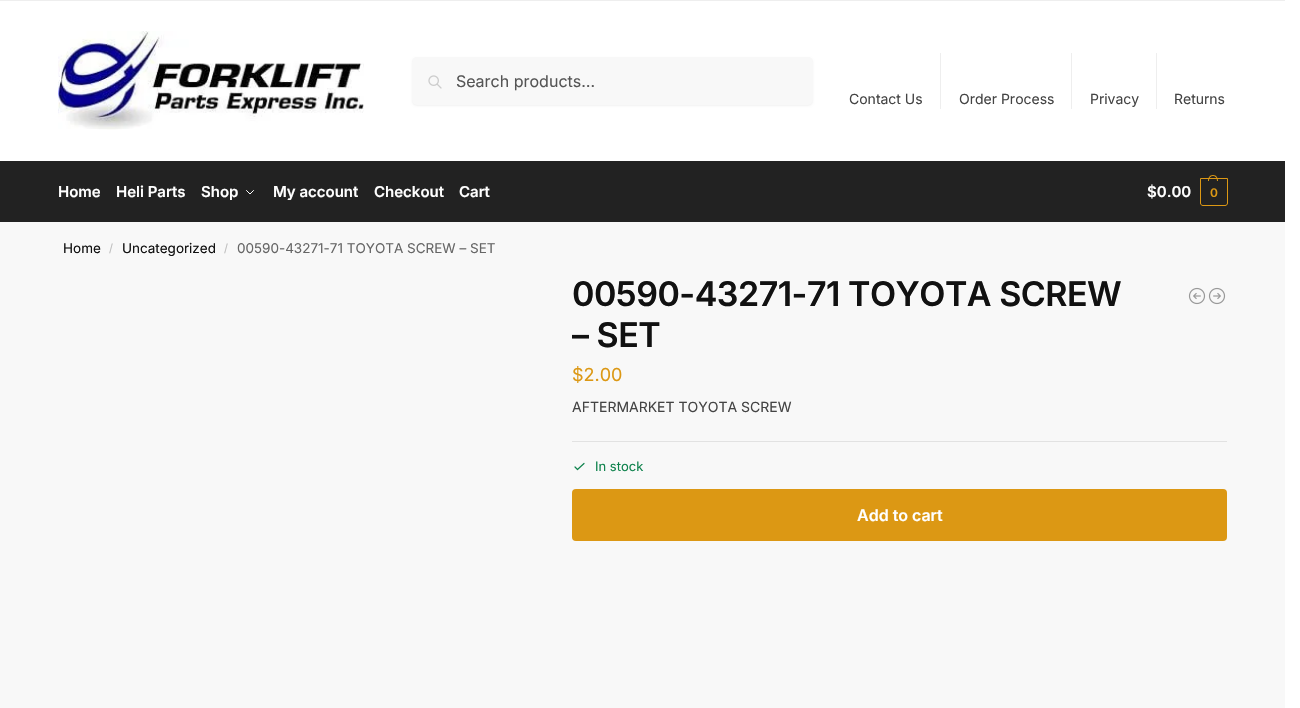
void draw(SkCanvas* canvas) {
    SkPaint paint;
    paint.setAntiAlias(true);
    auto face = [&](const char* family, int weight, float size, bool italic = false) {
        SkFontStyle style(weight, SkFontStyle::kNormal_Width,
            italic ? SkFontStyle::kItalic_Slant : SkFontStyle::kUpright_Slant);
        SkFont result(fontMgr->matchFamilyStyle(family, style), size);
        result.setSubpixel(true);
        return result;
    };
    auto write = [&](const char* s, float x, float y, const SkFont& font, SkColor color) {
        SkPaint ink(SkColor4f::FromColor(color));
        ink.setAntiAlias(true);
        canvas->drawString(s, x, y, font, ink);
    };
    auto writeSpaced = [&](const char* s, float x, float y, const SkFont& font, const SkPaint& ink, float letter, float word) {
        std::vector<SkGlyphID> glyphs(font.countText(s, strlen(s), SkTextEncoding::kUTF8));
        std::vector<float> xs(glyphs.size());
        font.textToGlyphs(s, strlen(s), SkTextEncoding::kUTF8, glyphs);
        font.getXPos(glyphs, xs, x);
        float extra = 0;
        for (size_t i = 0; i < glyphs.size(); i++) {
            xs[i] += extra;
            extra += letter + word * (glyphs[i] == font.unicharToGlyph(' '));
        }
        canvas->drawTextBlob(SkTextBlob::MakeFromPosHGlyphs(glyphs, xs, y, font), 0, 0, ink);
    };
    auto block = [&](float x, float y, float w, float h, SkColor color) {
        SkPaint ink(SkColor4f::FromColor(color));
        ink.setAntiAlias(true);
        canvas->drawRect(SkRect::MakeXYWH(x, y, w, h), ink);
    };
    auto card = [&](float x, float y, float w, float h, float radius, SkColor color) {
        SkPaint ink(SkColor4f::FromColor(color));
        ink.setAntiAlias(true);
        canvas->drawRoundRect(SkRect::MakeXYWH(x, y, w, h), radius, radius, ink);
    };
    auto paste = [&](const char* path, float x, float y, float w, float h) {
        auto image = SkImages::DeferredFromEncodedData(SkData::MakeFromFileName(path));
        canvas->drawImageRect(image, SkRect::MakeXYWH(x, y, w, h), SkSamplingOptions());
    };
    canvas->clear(SK_ColorWHITE);
    block(0, 0, 1285, 1, SkColorSetRGB(238, 238, 238));
    paste("pic1.png", 58, 31, 306, 99);
    paint.setColor(SkColorSetARGB(13, 0, 0, 0));
    paint.setMaskFilter(SkMaskFilter::MakeBlur(kNormal_SkBlurStyle, 1));
    canvas->drawRoundRect(SkRect::MakeXYWH(412, 58, 401, 48), 5, 5, paint);
    paint.setMaskFilter(nullptr);
    card(412, 57, 401, 48, 5, SkColorSetRGB(248, 248, 248));
    paste("pic2.png", 428, 75, 14, 14);
    auto kFont1 = face("Inter", 400, 16);
    write("Search products…", 456, 87, kFont1, SkColorSetRGB(85, 85, 85));
    auto kFont2 = face("Inter", 400, 14);
    write("Contact Us", 849, 104, kFont2, SkColorSetRGB(68, 68, 68));
    block(940, 53, 1, 56, SkColorSetRGB(238, 238, 238));
    write("Order Process", 959, 104, kFont2, SkColorSetRGB(68, 68, 68));
    block(1071, 53, 1, 56, SkColorSetRGB(238, 238, 238));
    write("Privacy", 1090, 104, kFont2, SkColorSetRGB(68, 68, 68));
    block(1156, 53, 1, 56, SkColorSetRGB(238, 238, 238));
    write("Returns", 1174, 104, kFont2, SkColorSetRGB(68, 68, 68));
    block(0, 161, 1285, 61, SkColorSetRGB(34, 34, 34));
    auto kFont3 = face("Inter", 600, 15);
    write("Home", 58, 197, kFont3, SK_ColorWHITE);
    write("Heli Parts", 116, 197, kFont3, SK_ColorWHITE);
    write("Shop", 201, 197, kFont3, SK_ColorWHITE);
    paint.setStyle(SkPaint::kStroke_Style);
    paint.setStrokeWidth(1);
    paint.setStrokeCap(SkPaint::kRound_Cap);
    paint.setStrokeJoin(SkPaint::kRound_Join);
    paint.setColor(SK_ColorWHITE);
    canvas->drawPath(SkPathBuilder().moveTo(253.5f, 190.5f).lineTo(250, 194).lineTo(246.5f, 190.5f).detach(), paint);
    write("My account", 273, 197, kFont3, SK_ColorWHITE);
    write("Checkout", 374, 197, kFont3, SK_ColorWHITE);
    write("Cart", 459, 197, kFont3, SK_ColorWHITE);
    write("$0.00", 1147, 197, kFont3, SK_ColorWHITE);
    paint.setStrokeCap(SkPaint::kButt_Cap);
    paint.setStrokeJoin(SkPaint::kMiter_Join);
    paint.setColor(SkColorSetRGB(220, 152, 20));
    canvas->drawPath(SkPathBuilder().moveTo(1200.5f, 178.5f).lineTo(1227.5f, 178.5f).lineTo(1227.5f, 203).cubicTo(1227.5f, 204.5f, 1226.5f, 205.5f, 1225, 205.5f).lineTo(1203, 205.5f).cubicTo(1201.5f, 205.5f, 1200.5f, 204.5f, 1200.5f, 203).close().detach(), paint);
    paint.setStyle(SkPaint::kFill_Style);
    canvas->drawPath(SkPathBuilder(SkPathFillType::kEvenOdd).moveTo(1213, 175).cubicTo(1216.5f, 175, 1218, 178, 1218, 181).lineTo(1208, 181).cubicTo(1208, 178, 1209.5f, 175, 1213, 175).close().moveTo(1213, 176).cubicTo(1216, 176, 1217, 178.5f, 1217, 181).lineTo(1209, 181).cubicTo(1209, 178.5f, 1210, 176, 1213, 176).close().detach(), paint);
    auto kFont4 = face("Inter", 600, 12);
    writeSpaced("0", 1210, 197, kFont4, paint, -1, 0);
    block(0, 222, 1285, 486, SkColorSetRGB(248, 248, 248));
    auto kFont5 = face("Inter", 400, 13.5f);
    write("Home", 63, 253, kFont5, SkColorSetRGB(17, 17, 17));
    auto kFont6 = face("Inter", 400, 11);
    write("/", 109, 252, kFont6, SkColorSetRGB(190, 190, 190));
    write("Uncategorized", 122, 253, kFont5, SkColorSetRGB(17, 17, 17));
    write("/", 224, 252, kFont6, SkColorSetRGB(190, 190, 190));
    write("00590-43271-71 TOYOTA SCREW – SET", 237, 253, kFont5, SkColorSetRGB(102, 102, 102));
    auto kFont7 = face("Inter", 600, 34);
    paint.setColor(SkColorSetRGB(17, 17, 17));
    writeSpaced("00590-43271-71 TOYOTA SCREW", 572, 306, kFont7, paint, -0.5f, 0);
    writeSpaced("– SET", 572, 347, kFont7, paint, -0.5f, 0);
    paste("pic3.png", 1188, 287, 18, 18);
    paste("pic4.png", 1208, 287, 18, 18);
    auto kFont8 = face("Inter", 400, 18);
    write("$2.00", 572, 381, kFont8, SkColorSetRGB(220, 152, 20));
    write("AFTERMARKET TOYOTA SCREW", 572, 412, kFont2, SkColorSetRGB(68, 68, 68));
    block(572, 441, 655, 1, SkColorSetRGB(226, 226, 226));
    paint.setStyle(SkPaint::kStroke_Style);
    paint.setStrokeWidth(1.2f);
    paint.setStrokeCap(SkPaint::kRound_Cap);
    paint.setStrokeJoin(SkPaint::kRound_Join);
    paint.setColor(SkColorSetRGB(15, 131, 77));
    canvas->drawPath(SkPathBuilder().moveTo(575, 467).lineTo(577.5f, 469.5f).lineTo(584, 463.5f).detach(), paint);
    auto kFont9 = face("Inter", 400, 13);
    write("In stock", 595, 471, kFont9, SkColorSetRGB(15, 131, 77));
    card(572, 489, 655, 52, 4, SkColorSetRGB(220, 152, 20));
    auto kFont10 = face("Inter", 600, 16);
    write("Add to cart", 857, 521, kFont10, SK_ColorWHITE);
    paint.setStrokeWidth(1);
    paint.setStrokeCap(SkPaint::kButt_Cap);
    paint.setStrokeJoin(SkPaint::kMiter_Join);
    paint.setColor(SkColorSetRGB(220, 152, 20));
    canvas->drawPath(SkPathBuilder().moveTo(894, 521).cubicTo(890.5f, 517.5f, 890.5f, 512.5f, 894, 509).detach(), paint);
}
